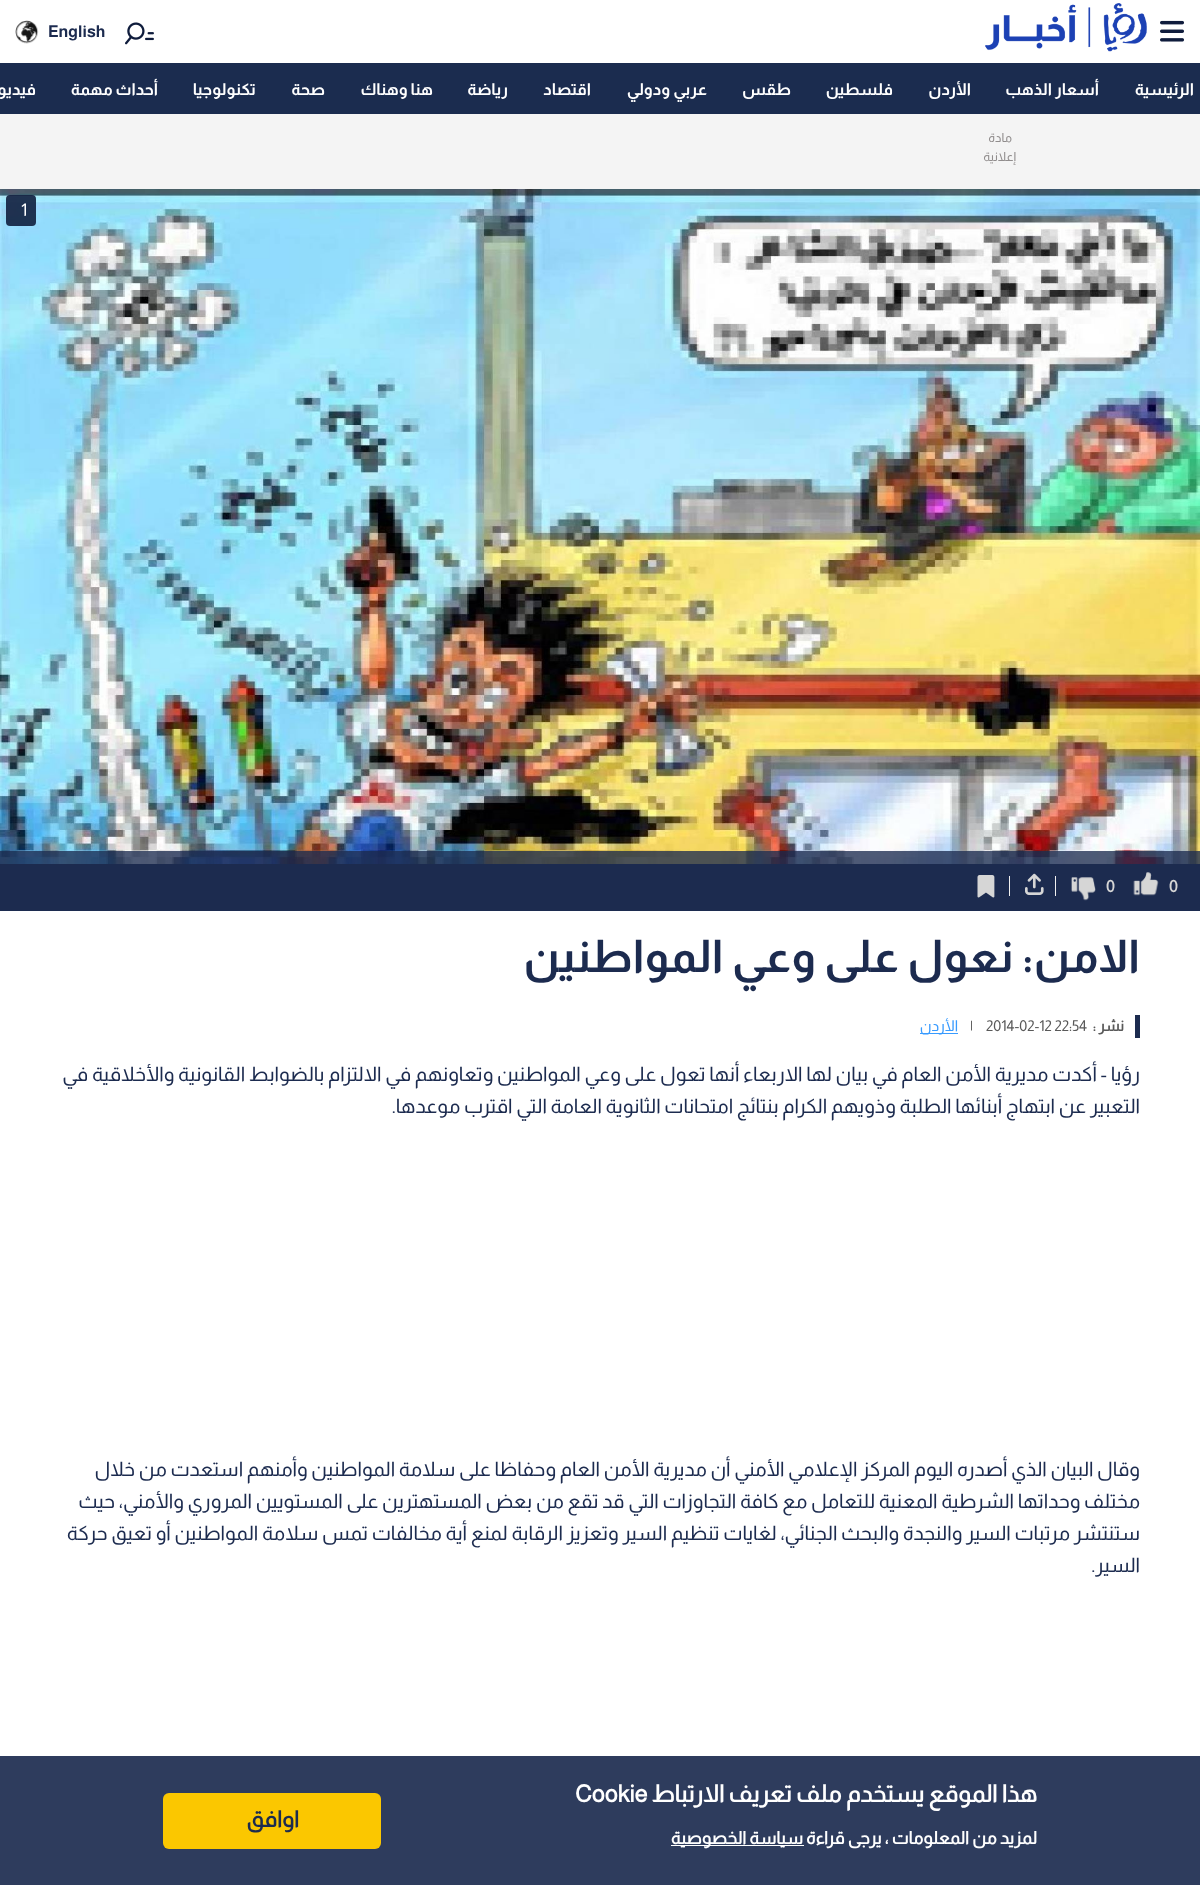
<!DOCTYPE html>
<meta charset="utf-8">
<style>body { margin: 0 } canvas { display: block }</style>
<canvas id="canvas" width="1200" height="1885"></canvas>
<img id="img1" src="img_01.png" hidden>
<img id="img2" src="img_02.png" hidden>
<img id="img3" src="img_03.png" hidden>
<img id="img4" src="img_04.png" hidden>
<img id="img5" src="img_05.png" hidden>
<img id="img6" src="img_06.png" hidden>
<img id="img7" src="img_07.png" hidden>
<img id="img8" src="img_08.png" hidden>
<img id="img9" src="img_09.png" hidden>
<script>
window.onload = function () {
	const canvas = document.getElementById("canvas");
	const ctx = canvas.getContext("2d");
	ctx.miterLimit = 4;
	ctx.fontKerning = "normal";
	function txt(s, x, y) {
		ctx.fillText(s, x, y);
	}
	function fill(x, y, w, h) {
		ctx.fillRect(x, y, w, h);
	}
	function round(x, y, w, h, r) {
		ctx.beginPath();
		ctx.roundRect(x, y, w, h, r);
		ctx.fill();
	}
	function img(id, x, y, w, h) {
		ctx.drawImage(document.getElementById(id), x, y, w, h);
	}

	ctx.fillStyle = "#F4F4F4";
	fill(0, 0, 1200, 1885);
	ctx.fillStyle = "#FFFFFF";
	fill(0, 0, 1200, 63);
	img("img1", 1160, 20, 24, 22);
	img("img2", 985, 3, 162, 49);
	img("img3", 125, 22, 29, 23);
	img("img4", 15, 20, 24, 24);
	ctx.fillStyle = "#1B2C4F";
	fill(0, 63, 1200, 51);
	ctx.fillStyle = "#2E3C5D";
	fill(0, 1756, 1200, 129);
	ctx.fillStyle = "#FFFFFF";
	fill(671, 1845, 133, 1);
	ctx.fillStyle = "#FBC700";
	round(163, 1793, 218, 56, 6);
	ctx.fillStyle = "#FFFFFF";
	fill(0, 911, 1200, 845);
	img("img5", 0, 189, 1200, 675);
	ctx.fillStyle = "rgba(15, 28, 60, 0.89)";
	round(6, 195, 30, 31, 4);
	ctx.fillStyle = "rgba(28, 43, 79, 0.78)";
	fill(0, 851, 1200, 13);
	ctx.fillStyle = "#1C2B4F";
	fill(0, 864, 1200, 47);
	img("img6", 1133, 872, 26, 24);
	img("img7", 1071, 877, 25, 24);
	ctx.fillStyle = "#F0F0F0";
	fill(1055, 876, 1, 20);
	img("img8", 1025, 873, 19, 22);
	fill(1009, 876, 1, 20);
	img("img9", 977, 875, 18, 23);
	ctx.fillStyle = "#1C2B4F";
	fill(1135, 1015, 5, 23);
	ctx.fillStyle = "#389BFF";
	fill(920, 1033, 38, 1);
	ctx.font = "bold 16.25px Almarai";
	ctx.fillStyle = "#1C2B4F";
	txt("English", 48, 37);
	ctx.direction = "rtl";
	ctx.fillStyle = "#FFFFFF";
	txt("الرئيسية", 1194, 95);
	txt("أسعار الذهب", 1099, 95);
	txt("الأردن", 971, 95);
	txt("فلسطين", 893, 95);
	txt("طقس", 791, 95);
	txt("عربي ودولي", 707, 95);
	txt("اقتصاد", 591, 95);
	txt("رياضة", 508, 95);
	txt("هنا وهناك", 433, 95);
	txt("صحة", 325, 95);
	txt("تكنولوجيا", 256, 95);
	txt("أحداث مهمة", 158, 95);
	txt("فيديو", 36, 95);
	ctx.font = "bold 23.75px 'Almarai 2'";
	txt("هذا الموقع يستخدم ملف تعريف الارتباط", 1037, 1802);
	ctx.direction = "ltr";
	txt("Cookie", 575, 1802);
	ctx.direction = "rtl";
	ctx.font = "bold 17.5px 'Almarai 2'";
	txt("لمزيد من المعلومات ، يرجى قراءة", 1037, 1844);
	txt("سياسة الخصوصية", 803, 1844);
	ctx.font = "bold 22.5px 'Almarai 2'";
	ctx.fillStyle = "#1C2B4F";
	txt("اوافق", 299, 1827);
	ctx.font = "12.5px Almarai";
	ctx.fillStyle = "#918D8D";
	txt("مادة", 1012, 142);
	txt("إعلانية", 1016, 161);
	ctx.direction = "ltr";
	ctx.font = "17.5px Almarai";
	ctx.fillStyle = "#FFFFFF";
	txt("1", 21, 216);
	ctx.font = "bold 16.25px 'Almarai 2'";
	ctx.fillStyle = "#D6D6D6";
	txt("0", 1169, 892);
	txt("0", 1106, 892);
	ctx.direction = "rtl";
	ctx.font = "bold 45px Almarai";
	ctx.fillStyle = "#1C2B4F";
	txt("الامن: نعول على وعي المواطنين", 1140, 972);
	ctx.font = "bold 15px 'Almarai 2'";
	ctx.fillStyle = "#595959";
	txt("نشر :", 1124, 1031);
	ctx.direction = "ltr";
	ctx.font = "15px Almarai";
	txt("2014-02-12 22:54", 986, 1031);
	txt("|", 970, 1031);
	ctx.direction = "rtl";
	ctx.fillStyle = "#389BFF";
	txt("الأردن", 958, 1031);
	ctx.font = "20px Almarai";
	ctx.fillStyle = "#1C2B4F";
	txt("رؤيا - أكدت مديرية الأمن العام في بيان لها الاربعاء أنها تعول على وعي المواطنين وتعاونهم في الالتزام بالضوابط القانونية والأخلاقية في", 1140, 1081);
	txt("التعبير عن ابتهاج أبنائها الطلبة وذويهم الكرام بنتائج امتحانات الثانوية العامة التي اقترب موعدها.", 1140, 1113);
	txt("وقال البيان الذي أصدره اليوم المركز الإعلامي الأمني أن مديرية الأمن العام وحفاظا على سلامة المواطنين وأمنهم استعدت من خلال", 1140, 1476);
	txt("مختلف وحداتها الشرطية المعنية للتعامل مع كافة التجاوزات التي قد تقع من بعض المستهترين على المستويين المروري والأمني، حيث", 1140, 1508);
	txt("ستنتشر مرتبات السير والنجدة والبحث الجنائي، لغايات تنظيم السير وتعزيز الرقابة لمنع أية مخالفات تمس سلامة المواطنين أو تعيق حركة", 1140, 1540);
	txt("السير.", 1140, 1572);
};
</script>
